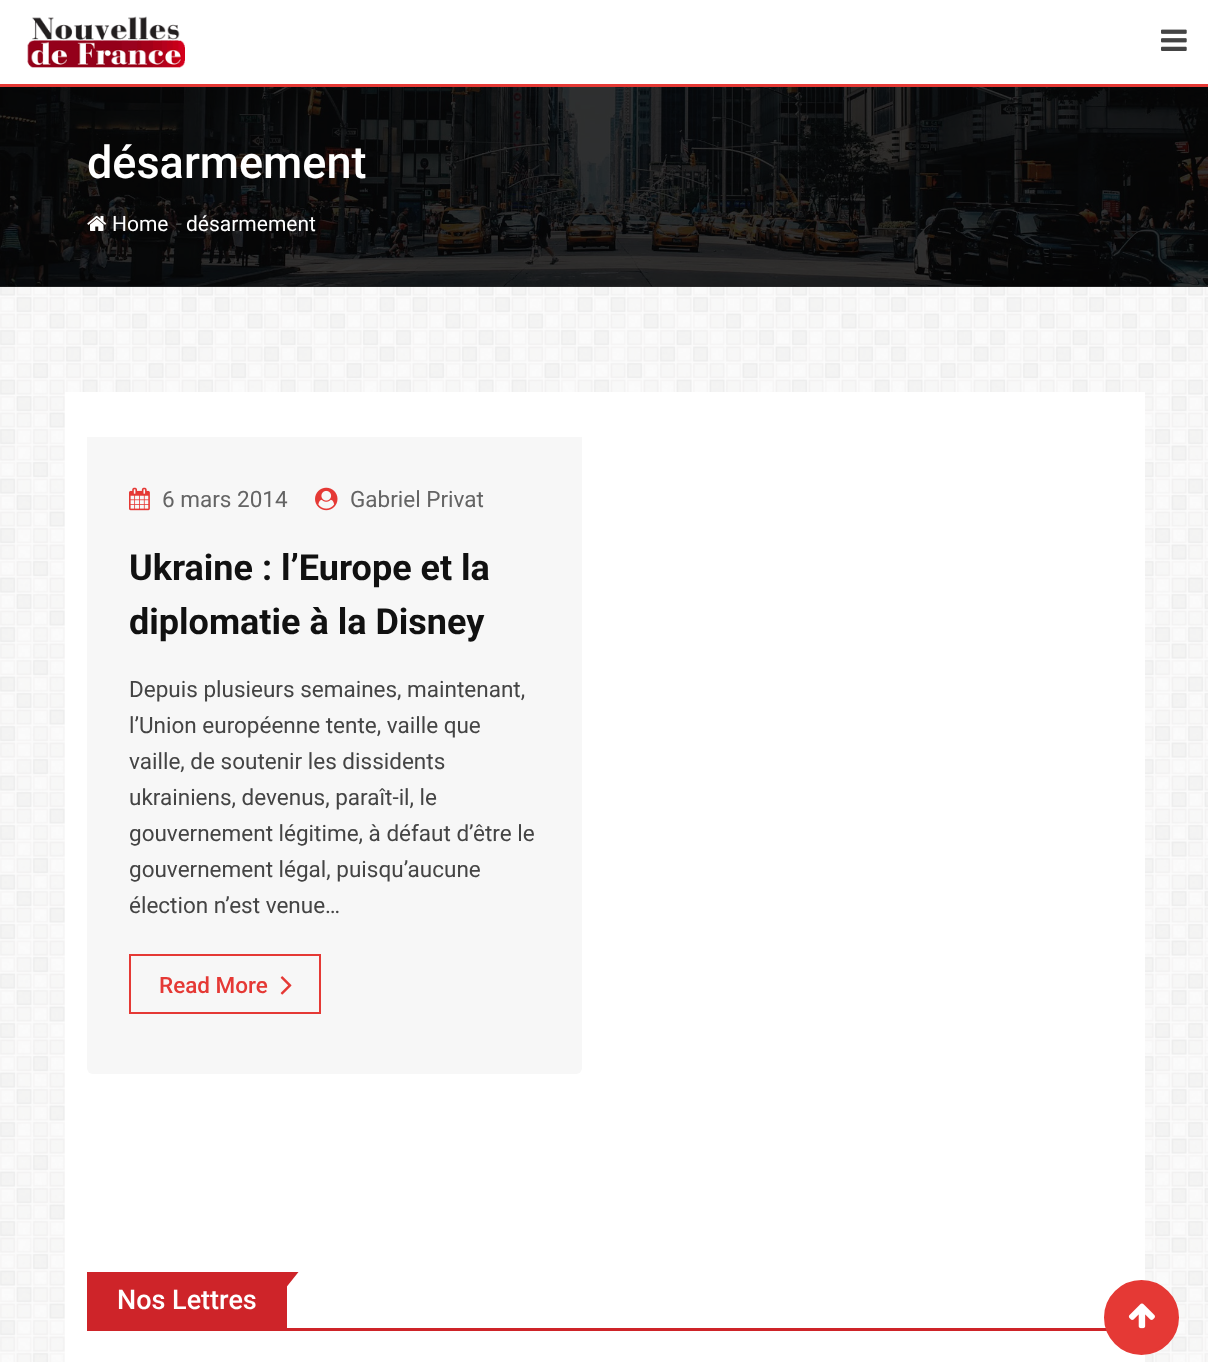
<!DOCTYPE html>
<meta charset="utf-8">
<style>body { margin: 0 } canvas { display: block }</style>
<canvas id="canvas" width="1208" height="1362"></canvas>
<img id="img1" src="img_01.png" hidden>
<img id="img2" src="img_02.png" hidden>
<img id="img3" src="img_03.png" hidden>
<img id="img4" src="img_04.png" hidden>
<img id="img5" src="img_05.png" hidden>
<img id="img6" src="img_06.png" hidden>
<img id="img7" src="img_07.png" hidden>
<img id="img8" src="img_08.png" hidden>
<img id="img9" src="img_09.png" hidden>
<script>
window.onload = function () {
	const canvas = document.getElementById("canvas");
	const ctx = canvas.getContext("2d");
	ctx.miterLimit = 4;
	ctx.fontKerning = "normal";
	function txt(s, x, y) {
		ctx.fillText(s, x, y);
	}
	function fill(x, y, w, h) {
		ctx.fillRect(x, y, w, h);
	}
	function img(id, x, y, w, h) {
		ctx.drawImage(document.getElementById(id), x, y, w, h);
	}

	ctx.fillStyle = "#FFFFFF";
	fill(0, 0, 1208, 1362);
	img("img1", 0, 286, 1208, 1076);
	ctx.fillStyle = "#E53935";
	fill(0, 84, 1208, 3);
	img("img2", 27, 16, 158, 52);
	img("img3", 1161, 29, 26, 22);
	img("img4", 0, 87, 1208, 200);
	ctx.fillStyle = "rgba(0, 0, 0, 0.8)";
	fill(0, 87, 1208, 200);
	img("img5", 87, 216, 20, 15);
	ctx.fillStyle = "#FFFFFF";
	fill(65, 392, 1080, 970);
	ctx.fillStyle = "#F7F7F7";
	ctx.beginPath();
	ctx.roundRect(87, 437, 495, 637, [0, 0, 6, 6]);
	ctx.fill();
	img("img6", 129, 487, 21, 24);
	img("img7", 315, 487, 23, 24);
	ctx.strokeStyle = "#E53935";
	ctx.lineWidth = 2;
	ctx.strokeRect(130, 955, 190, 58);
	img("img8", 280, 976, 12, 19);
	ctx.fillStyle = "#CE2429";
	fill(87, 1328, 1020, 3);
	fill(87, 1272, 200, 56);
	ctx.beginPath();
	ctx.moveTo(286.5, 1272);
	ctx.lineTo(298.5, 1272);
	ctx.lineTo(286.5, 1287);
	ctx.closePath();
	ctx.fill();
	ctx.fillStyle = "#E53935";
	ctx.beginPath();
	ctx.arc(1141.5, 1317.5, 36, 0, Math.PI * 2);
	ctx.fill();
	ctx.lineWidth = 3;
	ctx.stroke();
	img("img9", 1128, 1303, 27, 26);
	ctx.font = "500 45px Roboto";
	ctx.fillStyle = "#FFFFFF";
	txt("désarmement", 87, 178);
	ctx.font = "21px Roboto";
	txt("Home", 112, 231);
	ctx.font = "italic 22.5px Roboto";
	ctx.fillStyle = "#444444";
	txt("-", 174, 231);
	ctx.font = "21px Roboto";
	ctx.fillStyle = "#FFFFFF";
	txt("désarmement", 186, 231);
	ctx.font = "22.5px Roboto";
	ctx.fillStyle = "#646464";
	txt("6 mars 2014", 162, 507);
	txt("Gabriel Privat", 350, 507);
	ctx.font = "bold 36px Roboto";
	ctx.fillStyle = "#111111";
	txt("Ukraine : l’Europe et la", 129, 580);
	txt("diplomatie à la Disney", 129, 634);
	ctx.font = "22.5px Roboto";
	ctx.fillStyle = "#444444";
	txt("Depuis plusieurs semaines, maintenant,", 129, 697);
	txt("l’Union européenne tente, vaille que", 129, 733);
	txt("vaille, de soutenir les dissidents", 129, 769);
	txt("ukrainiens, devenus, paraît-il, le", 129, 805);
	txt("gouvernement légitime, à défaut d’être le", 129, 841);
	txt("gouvernement légal, puisqu’aucune", 129, 877);
	txt("élection n’est venue…", 129, 913);
	ctx.font = "500 22.5px Roboto";
	ctx.fillStyle = "#E53935";
	txt("Read More", 159, 993);
	ctx.font = "500 27px Roboto";
	ctx.fillStyle = "#FFFFFF";
	txt("Nos Lettres", 117, 1309);
};
</script>
